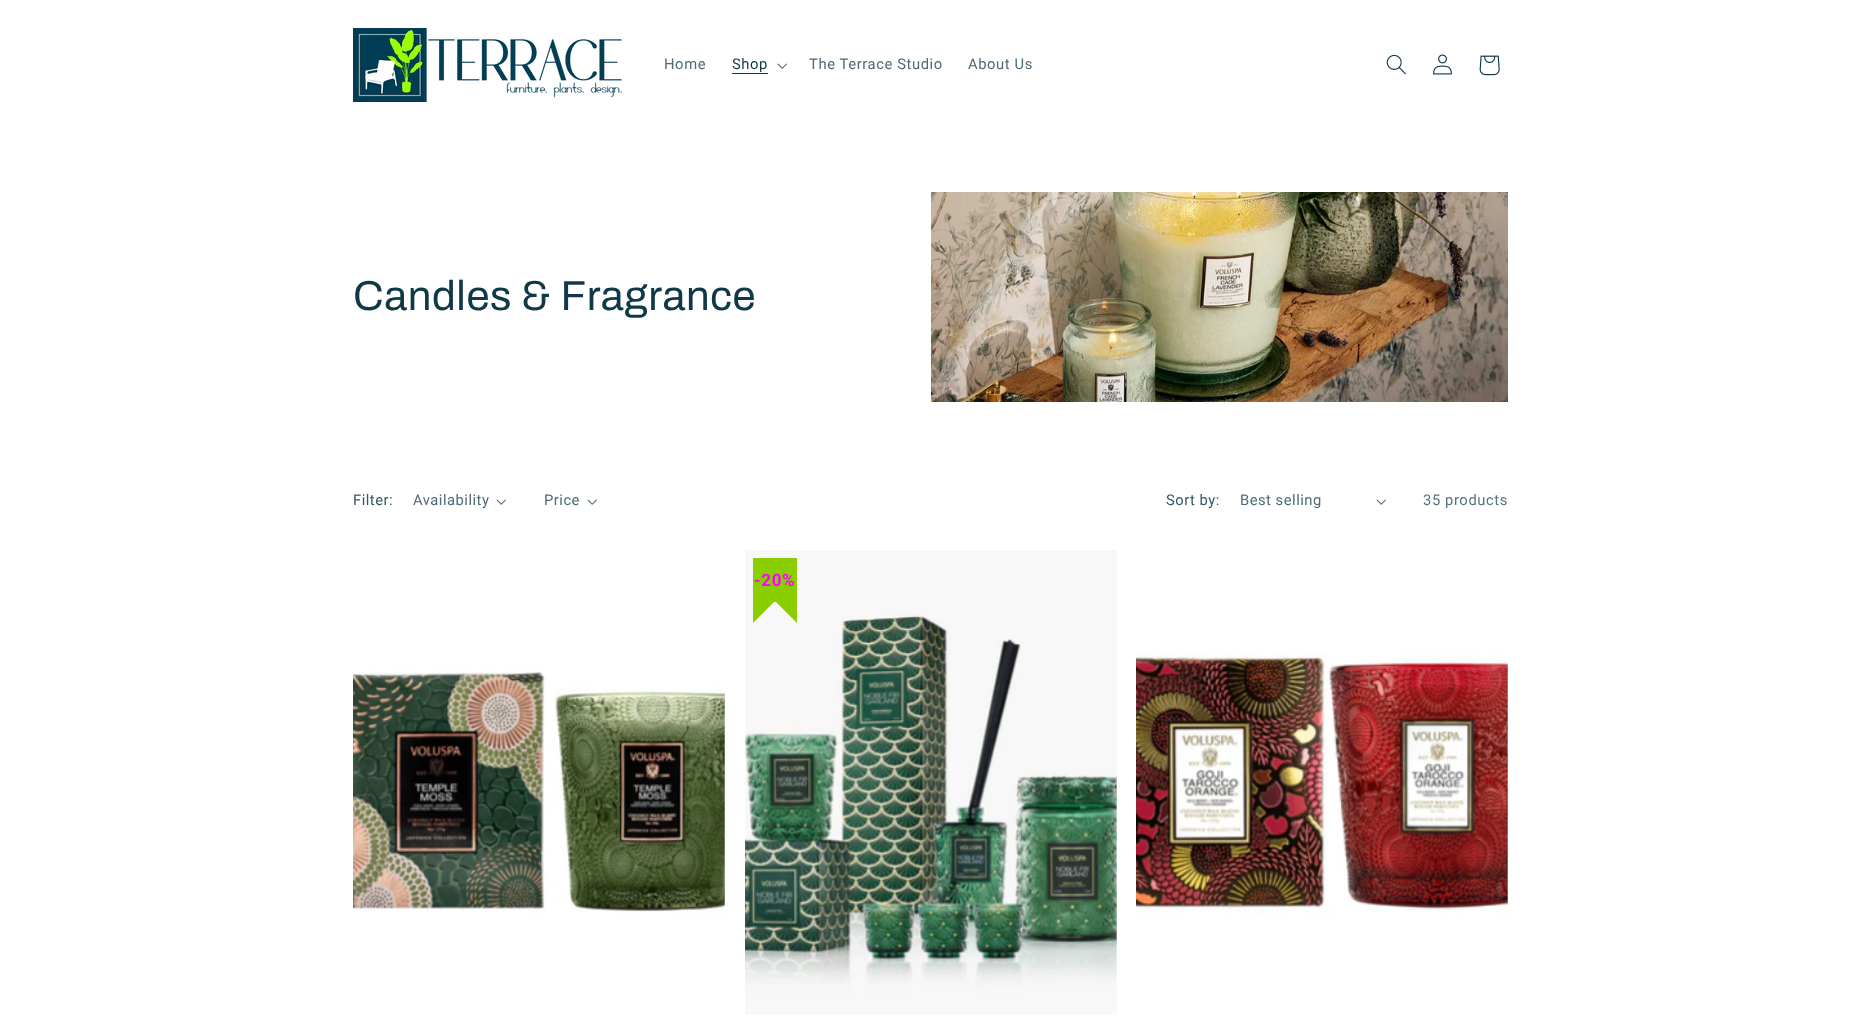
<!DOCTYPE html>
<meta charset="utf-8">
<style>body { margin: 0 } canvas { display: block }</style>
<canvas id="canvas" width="1861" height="1032"></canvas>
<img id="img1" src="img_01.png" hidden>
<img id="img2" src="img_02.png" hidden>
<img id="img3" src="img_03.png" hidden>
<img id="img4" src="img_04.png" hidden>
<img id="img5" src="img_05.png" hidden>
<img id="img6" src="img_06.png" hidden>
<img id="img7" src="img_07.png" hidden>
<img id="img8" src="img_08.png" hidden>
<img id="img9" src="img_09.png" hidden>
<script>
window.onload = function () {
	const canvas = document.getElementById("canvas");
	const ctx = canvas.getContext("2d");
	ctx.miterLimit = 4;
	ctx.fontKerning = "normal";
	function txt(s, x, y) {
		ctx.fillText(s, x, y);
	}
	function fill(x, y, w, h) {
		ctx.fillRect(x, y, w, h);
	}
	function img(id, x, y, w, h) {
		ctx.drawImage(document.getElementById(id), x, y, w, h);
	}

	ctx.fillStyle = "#FFFFFF";
	fill(0, 0, 1861, 1032);
	img("img1", 353, 28, 269, 74);
	ctx.fillStyle = "#103948";
	fill(732, 73, 36, 1);
	img("img2", 777, 63, 10, 6);
	img("img3", 1386, 54, 20, 21);
	img("img4", 1433, 54, 19, 21);
	img("img5", 1479, 55, 21, 21);
	img("img6", 931, 192, 577, 210);
	img("img2", 496, 499, 10, 6);
	img("img2", 587, 499, 10, 6);
	img("img2", 1376, 499, 10, 6);
	img("img7", 353, 550, 372, 464);
	img("img8", 745, 550, 372, 465);
	ctx.fillStyle = "#8ACE00";
	fill(753, 558, 44, 44);
	ctx.beginPath();
	ctx.moveTo(797, 601);
	ctx.lineTo(797, 623);
	ctx.lineTo(775, 601);
	ctx.closePath();
	ctx.moveTo(753, 623);
	ctx.lineTo(753, 601);
	ctx.lineTo(775, 601);
	ctx.closePath();
	ctx.fill();
	img("img9", 1136, 550, 372, 464);
	ctx.letterSpacing = "0.6px";
	ctx.font = "14.75px Roboto";
	ctx.fillStyle = "#4C6B76";
	txt("Home", 664, 69);
	ctx.fillStyle = "#103948";
	txt("Shop", 732, 69);
	ctx.fillStyle = "#4C6B76";
	txt("The Terrace Studio", 809, 69);
	txt("About Us", 968, 69);
	ctx.font = "42px Archivo";
	ctx.fillStyle = "#103948";
	txt("Candles & Fragrance", 353, 310);
	ctx.letterSpacing = "0.5px";
	ctx.font = "14.75px Roboto";
	ctx.fillStyle = "#345763";
	txt("Filter:", 353, 505);
	ctx.fillStyle = "#4C6B76";
	txt("Availability", 413, 505);
	txt("Price", 544, 505);
	ctx.fillStyle = "#345763";
	txt("Sort by:", 1166, 505);
	ctx.fillStyle = "#4C6B76";
	txt("Best selling", 1240, 505);
	ctx.letterSpacing = "0.6px";
	ctx.fillStyle = "#58747F";
	txt("35 products", 1423, 505);
	ctx.font = "bold 17px Roboto";
	ctx.fillStyle = "#FF00FF";
	txt("-20%", 754, 586);
};
</script>
